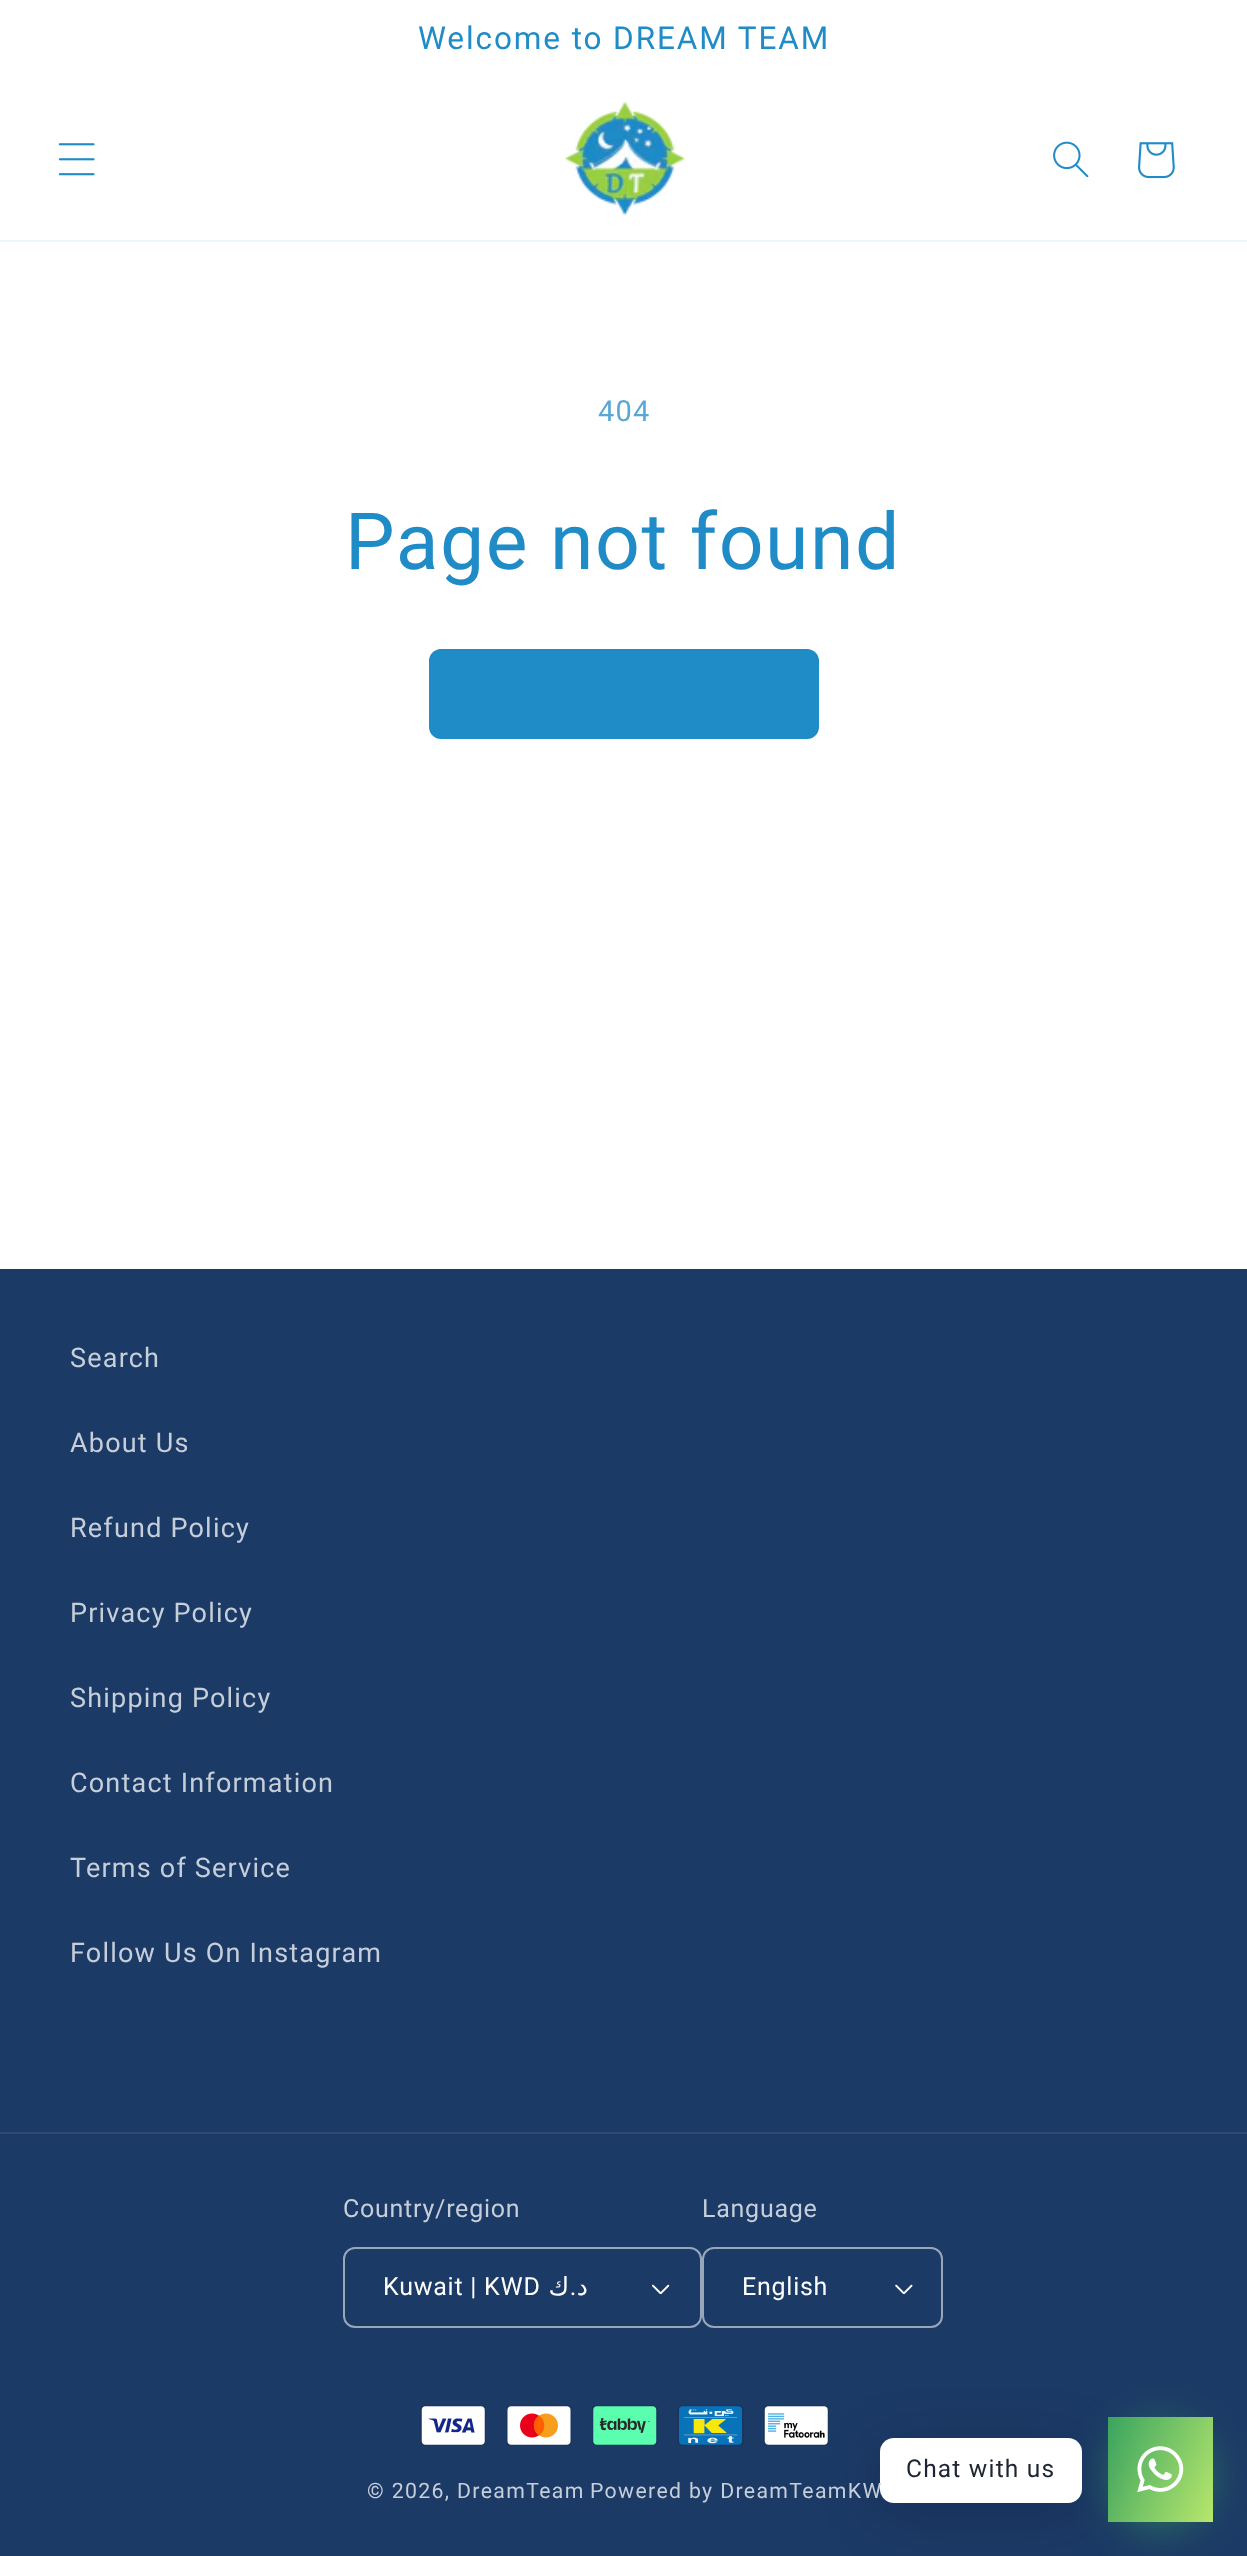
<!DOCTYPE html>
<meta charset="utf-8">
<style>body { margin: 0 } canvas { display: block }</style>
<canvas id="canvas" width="1247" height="2556"></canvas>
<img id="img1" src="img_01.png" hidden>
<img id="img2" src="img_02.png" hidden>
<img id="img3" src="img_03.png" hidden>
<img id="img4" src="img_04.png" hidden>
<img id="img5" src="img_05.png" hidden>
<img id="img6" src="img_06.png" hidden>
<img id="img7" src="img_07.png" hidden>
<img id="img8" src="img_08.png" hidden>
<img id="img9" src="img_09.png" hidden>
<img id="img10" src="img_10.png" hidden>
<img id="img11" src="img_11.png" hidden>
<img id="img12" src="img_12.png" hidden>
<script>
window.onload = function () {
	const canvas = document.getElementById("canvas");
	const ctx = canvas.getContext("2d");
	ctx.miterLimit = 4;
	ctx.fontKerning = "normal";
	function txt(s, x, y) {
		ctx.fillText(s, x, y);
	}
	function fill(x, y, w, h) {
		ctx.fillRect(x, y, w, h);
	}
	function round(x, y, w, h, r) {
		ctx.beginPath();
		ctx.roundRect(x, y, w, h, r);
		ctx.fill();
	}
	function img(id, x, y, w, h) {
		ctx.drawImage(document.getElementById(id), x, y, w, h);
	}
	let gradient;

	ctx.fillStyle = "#FFFFFF";
	fill(0, 0, 1247, 2556);
	ctx.fillStyle = "#EDF6FB";
	fill(0, 240, 1247, 2);
	img("img1", 58, 143, 37, 33);
	img("img2", 565, 101, 120, 115);
	img("img3", 1053, 141, 36, 37);
	img("img4", 1138, 142, 37, 37);
	ctx.fillStyle = "#1F8BC7";
	ctx.beginPath();
	ctx.roundRect(430, 650, 388, 88, 11);
	ctx.fill();
	ctx.strokeStyle = "#1F8BC7";
	ctx.lineWidth = 2;
	ctx.stroke();
	ctx.fillStyle = "#1C3A66";
	fill(0, 1269, 1247, 1287);
	ctx.fillStyle = "#2E4A72";
	fill(0, 2132, 1247, 2);
	img("img5", 652, 2284, 18, 10);
	ctx.beginPath();
	ctx.roundRect(344, 2248, 357, 79, 11);
	ctx.strokeStyle = "#99A6BA";
	ctx.stroke();
	img("img6", 895, 2284, 18, 10);
	ctx.beginPath();
	ctx.roundRect(703, 2248, 239, 79, 11);
	ctx.stroke();
	img("img7", 420, 2405, 66, 41);
	img("img8", 506, 2405, 66, 41);
	img("img9", 592, 2405, 66, 41);
	img("img10", 677, 2405, 67, 41);
	img("img11", 763, 2405, 66, 41);
	ctx.fillStyle = "rgba(58, 165, 96, 0.5)";
	ctx.filter = "blur(21px)";
	ctx.beginPath();
	ctx.roundRect(1108, 2424, 105, 105, 52.5);
	ctx.fill();
	ctx.filter = "none";
	gradient = ctx.createLinearGradient(1097, 2440, 1223, 2499);
	gradient.addColorStop(0, "#3AA560");
	gradient.addColorStop(1, "#B7E66C");
	ctx.fillStyle = gradient;
	fill(1108, 2417, 105, 105);
	ctx.fillStyle = "rgba(0, 18, 46, 0.24)";
	ctx.filter = "blur(28px)";
	ctx.beginPath();
	ctx.roundRect(880, 2448, 202, 65, 14);
	ctx.fill();
	ctx.filter = "none";
	ctx.fillStyle = "#FFFFFF";
	round(880, 2438, 202, 65, 14);
	img("img12", 1137, 2446, 47, 47);
	ctx.letterSpacing = "1.9px";
	ctx.font = "31.5px Roboto";
	ctx.fillStyle = "#1F8BC7";
	txt("Welcome to DREAM TEAM", 418, 49);
	ctx.letterSpacing = "1.2px";
	ctx.font = "29px Roboto";
	ctx.fillStyle = "#57A8D5";
	txt("404", 598, 421);
	ctx.letterSpacing = "1.5px";
	ctx.font = "78.75px Roboto";
	ctx.fillStyle = "#1F8BC7";
	txt("Page not found", 345, 569);
	ctx.letterSpacing = "1.2px";
	ctx.font = "27px Roboto";
	ctx.fillStyle = "#C6CED9";
	txt("Search", 70, 1367);
	txt("About Us", 70, 1452);
	txt("Refund Policy", 70, 1537);
	txt("Privacy Policy", 70, 1622);
	txt("Shipping Policy", 70, 1707);
	txt("Contact Information", 70, 1792);
	txt("Terms of Service", 70, 1877);
	txt("Follow Us On Instagram", 70, 1962);
	ctx.letterSpacing = "0.75px";
	ctx.font = "25px Roboto";
	txt("Country/region", 343, 2217);
	ctx.fillStyle = "#FFFFFF";
	txt("Kuwait | KWD", 383, 2295);
	ctx.direction = "rtl";
	ctx.font = "25px DejaVu Sans";
	txt("ك", 569, 2295);
	ctx.font = "25px Roboto";
	txt(".", 577, 2295);
	ctx.font = "25px DejaVu Sans";
	txt("د", 588, 2295);
	ctx.direction = "ltr";
	ctx.font = "25px Roboto";
	ctx.fillStyle = "#C6CED9";
	txt("Language", 702, 2217);
	ctx.fillStyle = "#FFFFFF";
	txt("English", 742, 2295);
	ctx.letterSpacing = "1.35px";
	ctx.font = "21.25px Roboto";
	ctx.fillStyle = "#C6CED9";
	txt("© 2026, DreamTeam", 367, 2498);
	txt("Powered by DreamTeamKW", 590, 2498);
	ctx.letterSpacing = "1.2px";
	ctx.font = "24.5px Roboto";
	ctx.fillStyle = "#1E2433";
	txt("Chat with us", 906, 2477);
};
</script>
